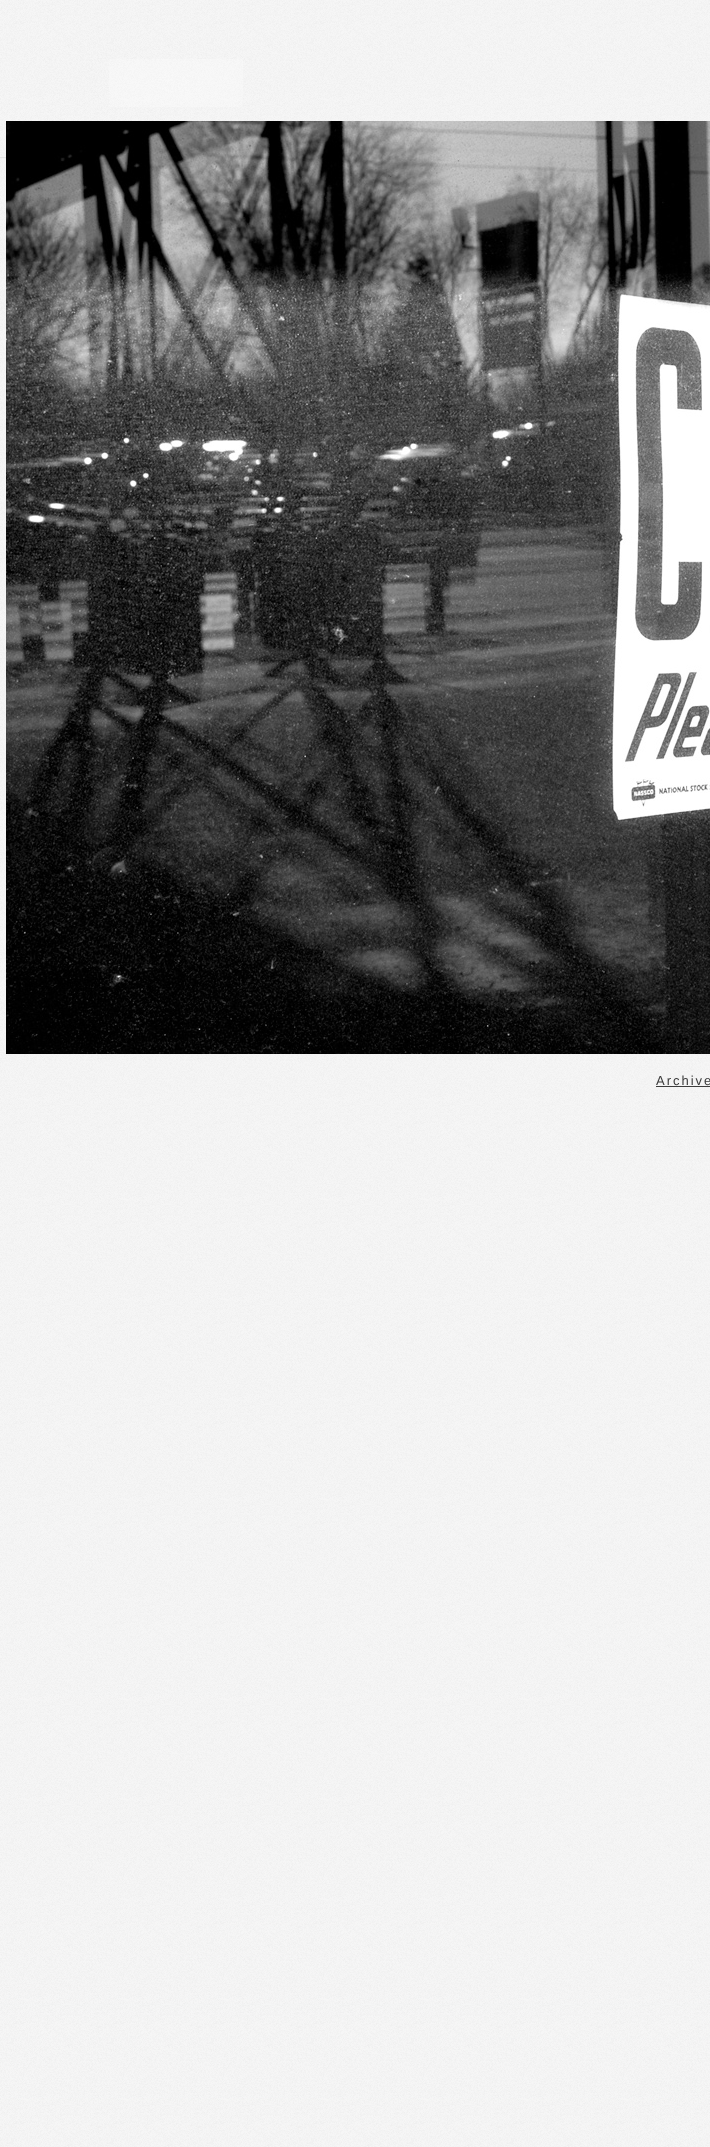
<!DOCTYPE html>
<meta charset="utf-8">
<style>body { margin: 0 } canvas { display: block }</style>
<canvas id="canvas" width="710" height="2147"></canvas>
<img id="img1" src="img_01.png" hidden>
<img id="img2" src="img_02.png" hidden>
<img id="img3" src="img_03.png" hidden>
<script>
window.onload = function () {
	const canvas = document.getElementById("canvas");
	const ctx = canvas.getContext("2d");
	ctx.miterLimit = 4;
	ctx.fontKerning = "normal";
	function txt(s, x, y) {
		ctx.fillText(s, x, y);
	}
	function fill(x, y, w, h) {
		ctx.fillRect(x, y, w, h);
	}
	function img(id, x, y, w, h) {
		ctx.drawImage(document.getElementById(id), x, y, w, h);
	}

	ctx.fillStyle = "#F6F6F6";
	fill(0, 0, 710, 2147);
	img("img1", 0, 0, 710, 2147);
	img("img2", 109, 59, 134, 48);
	ctx.fillStyle = "#E4E4E4";
	fill(0, 157, 6, 1);
	img("img3", 6, 121, 704, 933);
	ctx.fillStyle = "#3C3C3C";
	fill(656, 1086, 54, 1);
	ctx.letterSpacing = "2px";
	ctx.wordSpacing = "3px";
	ctx.font = "13px Liberation Sans";
	txt("Archive", 656, 1085);
};
</script>
